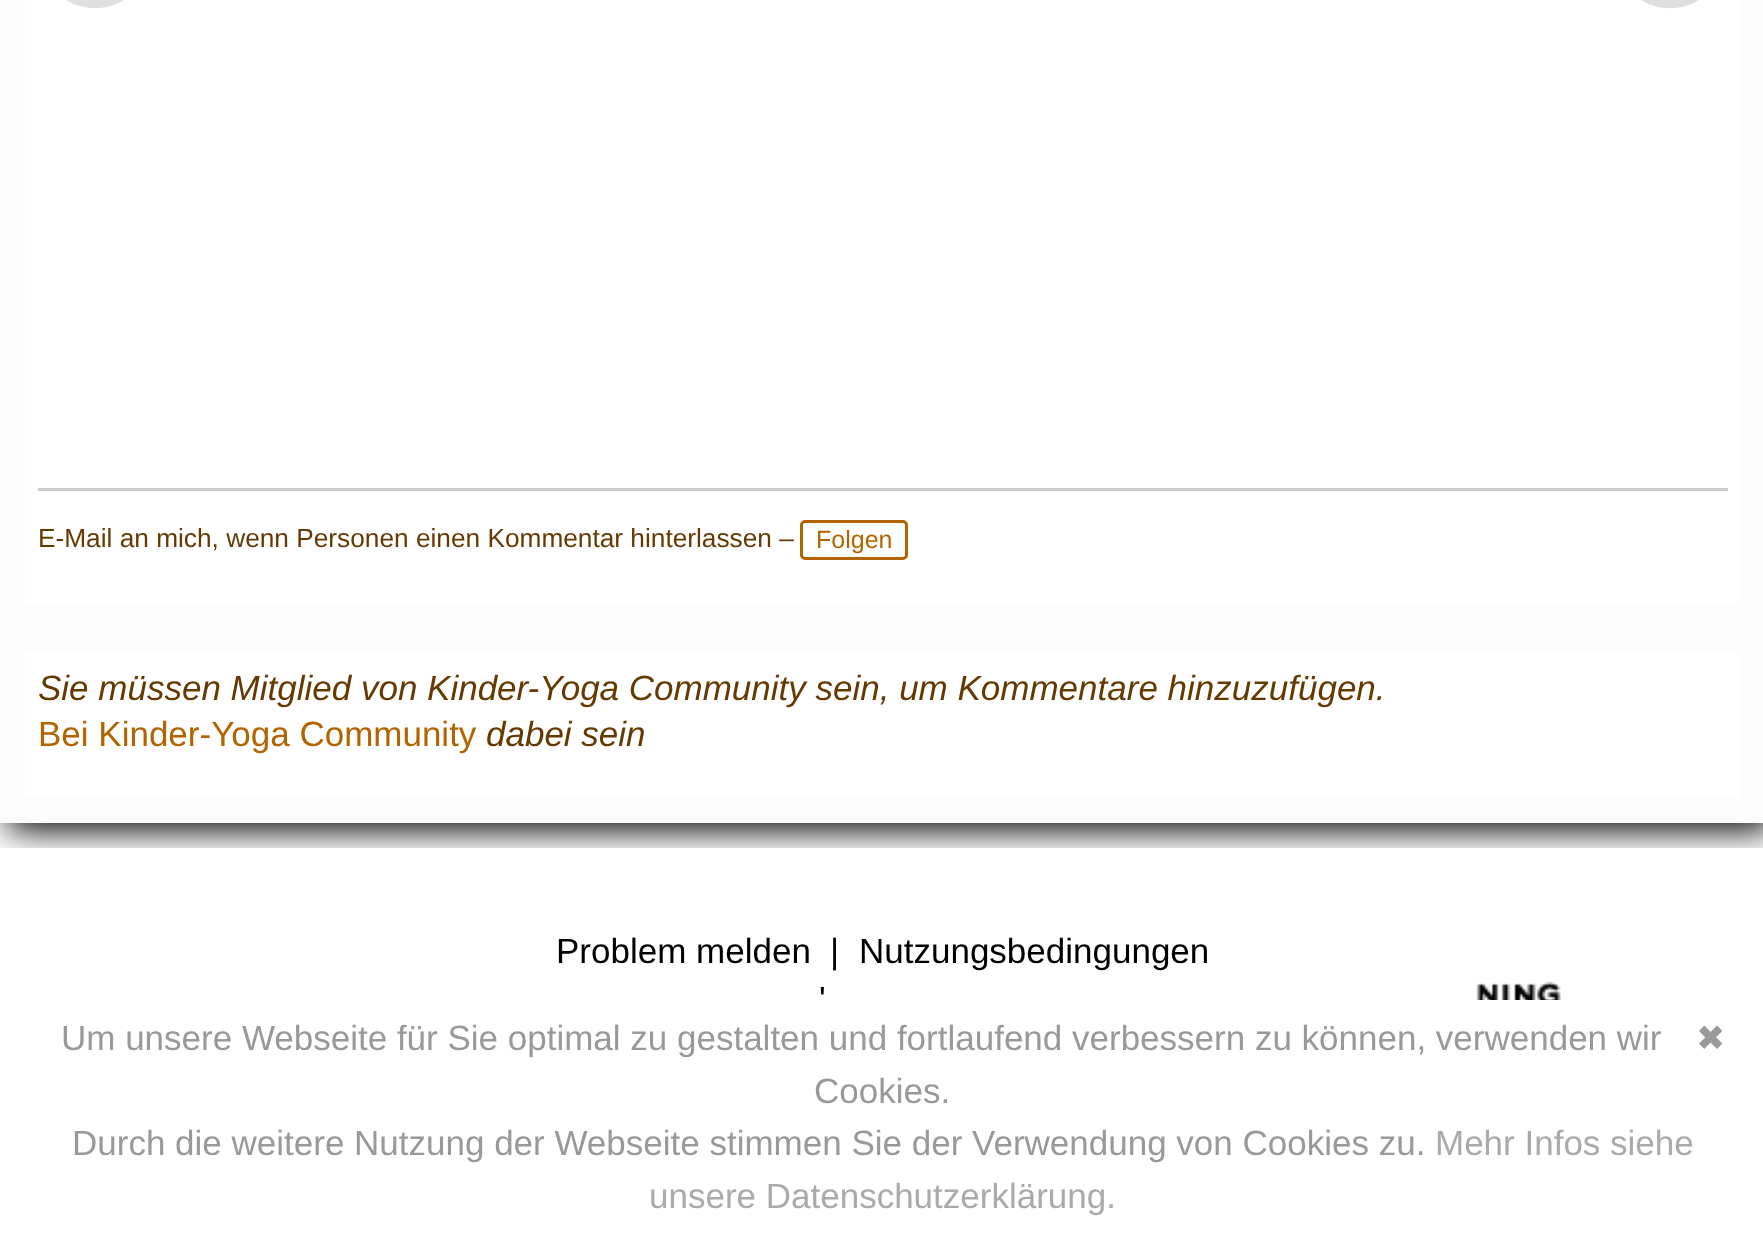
<!DOCTYPE html>
<meta charset="utf-8">
<style>body { margin: 0 } canvas { display: block }</style>
<canvas id="canvas" width="1763" height="1235"></canvas>
<img id="img1" src="img_01.png" hidden>
<img id="img2" src="img_02.png" hidden>
<script>
window.onload = function () {
	const canvas = document.getElementById("canvas");
	const ctx = canvas.getContext("2d");
	ctx.miterLimit = 4;
	ctx.fontKerning = "normal";
	function txt(s, x, y) {
		ctx.fillText(s, x, y);
	}
	function fill(x, y, w, h) {
		ctx.fillRect(x, y, w, h);
	}
	function img(id, x, y, w, h) {
		ctx.drawImage(document.getElementById(id), x, y, w, h);
	}

	ctx.fillStyle = "#FFFFFF";
	fill(0, 0, 1763, 1235);
	ctx.save();
	ctx.beginPath();
	ctx.rect(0, 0, 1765, 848);
	ctx.clip();
	ctx.fillStyle = "#000000";
	ctx.filter = "blur(17.5px)";
	ctx.beginPath();
	ctx.rect(8, -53, 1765, 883);
	ctx.fill();
	ctx.filter = "none";
	ctx.restore();
	ctx.fillStyle = "#FCFCFC";
	fill(0, 0, 1763, 823);
	ctx.fillStyle = "#FFFFFF";
	fill(25, 0, 1715, 603);
	img("img1", 66, 0, 58, 9);
	img("img1", 1641, 0, 58, 9);
	ctx.fillStyle = "#CCCCCC";
	fill(38, 488, 1690, 3);
	ctx.beginPath();
	ctx.roundRect(801.5, 521.5, 105, 37, 3.5);
	ctx.strokeStyle = "#B26400";
	ctx.lineWidth = 3;
	ctx.stroke();
	ctx.fillStyle = "#FFFFFF";
	fill(25, 653, 1715, 145);
	img("img2", 1476, 981, 85, 19);
	ctx.font = "26.25px Liberation Sans";
	ctx.fillStyle = "#653900";
	txt("E-Mail an mich, wenn Personen einen Kommentar hinterlassen –", 38, 547);
	ctx.font = "25px Liberation Sans";
	ctx.fillStyle = "#B26400";
	txt("Folgen", 816, 548);
	ctx.font = "italic 35px Liberation Sans";
	ctx.fillStyle = "#653900";
	txt("Sie müssen Mitglied von Kinder-Yoga Community sein, um Kommentare hinzuzufügen.", 38, 700);
	ctx.font = "35px Liberation Sans";
	ctx.fillStyle = "#B26400";
	txt("Bei Kinder-Yoga Community", 38, 746);
	ctx.font = "italic 35px Liberation Sans";
	ctx.fillStyle = "#653900";
	txt("dabei sein", 486, 746);
	ctx.font = "35px Liberation Sans";
	ctx.fillStyle = "#000000";
	txt("Problem melden", 556, 963);
	txt("|", 830, 963);
	txt("Nutzungsbedingungen", 859, 963);
	txt("'", 819, 1011);
	ctx.fillStyle = "#999999";
	txt("Um unsere Webseite für Sie optimal zu gestalten und fortlaufend verbessern zu können, verwenden wir", 61, 1050);
	ctx.font = "35px DejaVu Sans";
	txt("✖", 1696, 1050);
	ctx.font = "35px Liberation Sans";
	txt("Cookies.", 814, 1103);
	txt("Durch die weitere Nutzung der Webseite stimmen Sie der Verwendung von Cookies zu.", 72, 1155);
	ctx.fillStyle = "#AAAAAA";
	txt("Mehr Infos siehe", 1435, 1155);
	txt("unsere Datenschutzerklärung.", 649, 1208);
};
</script>
